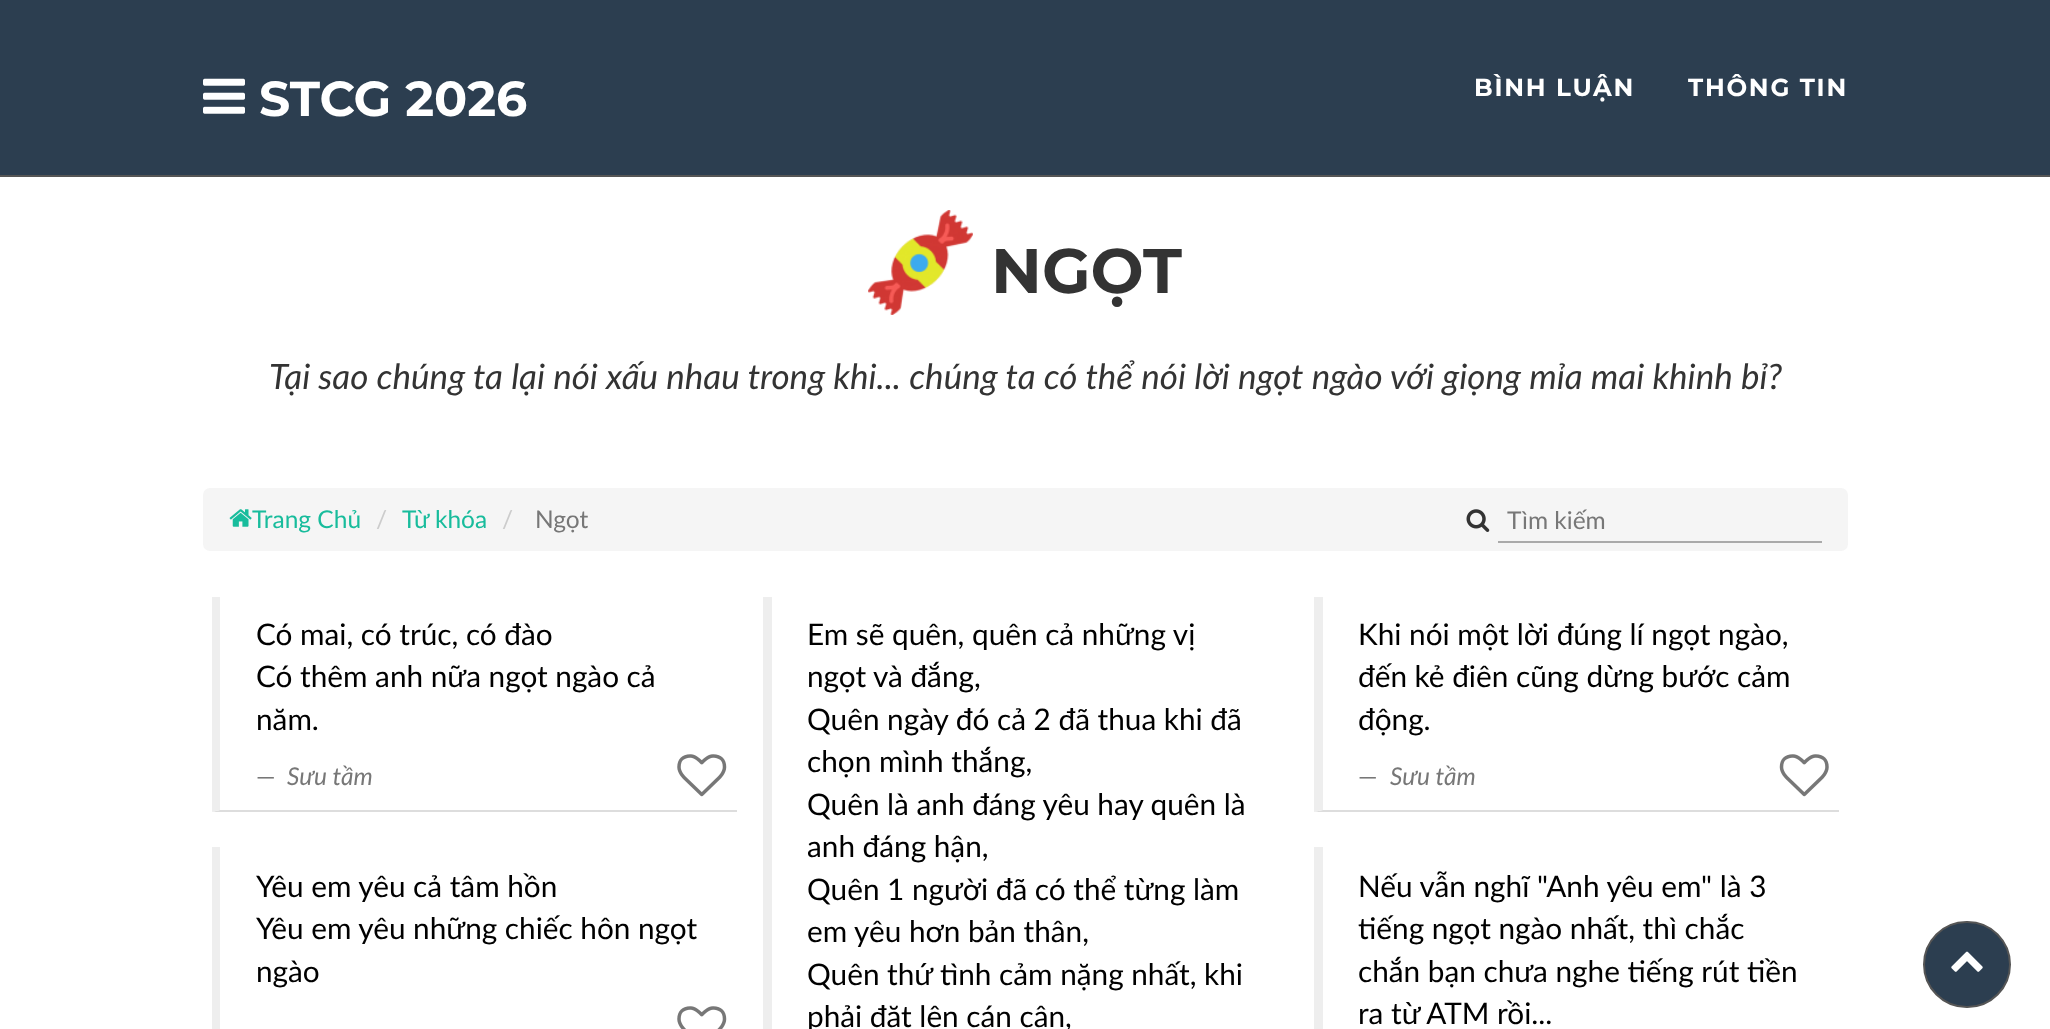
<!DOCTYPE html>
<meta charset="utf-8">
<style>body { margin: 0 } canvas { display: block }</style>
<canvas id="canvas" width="2050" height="1029"></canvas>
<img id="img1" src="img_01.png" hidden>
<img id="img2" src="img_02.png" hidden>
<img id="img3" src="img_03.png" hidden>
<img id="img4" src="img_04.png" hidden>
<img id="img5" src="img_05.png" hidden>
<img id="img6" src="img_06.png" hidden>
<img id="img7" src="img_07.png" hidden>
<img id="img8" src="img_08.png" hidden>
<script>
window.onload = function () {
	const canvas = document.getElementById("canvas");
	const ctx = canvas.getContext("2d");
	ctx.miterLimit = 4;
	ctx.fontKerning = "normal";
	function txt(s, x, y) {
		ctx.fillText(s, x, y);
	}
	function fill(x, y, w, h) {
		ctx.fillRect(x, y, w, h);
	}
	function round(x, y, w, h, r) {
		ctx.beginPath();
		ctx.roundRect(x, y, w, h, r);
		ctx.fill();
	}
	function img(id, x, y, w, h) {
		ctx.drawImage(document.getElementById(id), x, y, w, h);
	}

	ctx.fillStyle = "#FFFFFF";
	fill(0, 0, 2050, 1029);
	ctx.fillStyle = "#2C3E50";
	fill(0, 0, 2050, 175);
	ctx.fillStyle = "#555555";
	fill(0, 175, 2050, 2);
	img("img1", 203, 78, 42, 36);
	img("img2", 868, 210, 105, 105);
	ctx.fillStyle = "#F5F5F5";
	round(203, 488, 1645, 63, 7);
	img("img3", 229, 509, 23, 18);
	img("img4", 1466, 509, 24, 23);
	ctx.fillStyle = "#AAAAAA";
	fill(1498, 541, 324, 2);
	ctx.fillStyle = "#DDDDDD";
	ctx.beginPath();
	ctx.moveTo(737, 812);
	ctx.lineTo(212, 812);
	ctx.lineTo(220, 810);
	ctx.lineTo(737, 810);
	ctx.closePath();
	ctx.fill();
	ctx.fillStyle = "#EEEEEE";
	ctx.beginPath();
	ctx.moveTo(212, 812);
	ctx.lineTo(212, 597);
	ctx.lineTo(220, 597);
	ctx.lineTo(220, 810);
	ctx.closePath();
	ctx.fill();
	img("img5", 677, 754, 50, 43);
	ctx.beginPath();
	ctx.moveTo(763, 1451);
	ctx.lineTo(763, 597);
	ctx.lineTo(772, 597);
	ctx.lineTo(772, 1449);
	ctx.closePath();
	ctx.fill();
	ctx.fillStyle = "#DDDDDD";
	ctx.beginPath();
	ctx.moveTo(1839, 812);
	ctx.lineTo(1314, 812);
	ctx.lineTo(1323, 810);
	ctx.lineTo(1839, 810);
	ctx.closePath();
	ctx.fill();
	ctx.fillStyle = "#EEEEEE";
	ctx.beginPath();
	ctx.moveTo(1314, 812);
	ctx.lineTo(1314, 597);
	ctx.lineTo(1323, 597);
	ctx.lineTo(1323, 810);
	ctx.closePath();
	ctx.fill();
	img("img6", 1779, 754, 50, 43);
	ctx.beginPath();
	ctx.moveTo(212, 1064);
	ctx.lineTo(212, 847);
	ctx.lineTo(220, 847);
	ctx.lineTo(220, 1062);
	ctx.closePath();
	ctx.fill();
	img("img7", 677, 1006, 50, 23);
	ctx.beginPath();
	ctx.moveTo(1314, 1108);
	ctx.lineTo(1314, 847);
	ctx.lineTo(1323, 847);
	ctx.lineTo(1323, 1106);
	ctx.closePath();
	ctx.fill();
	ctx.fillStyle = "#2C3E50";
	ctx.beginPath();
	ctx.roundRect(1924, 922, 86, 85, 42.5);
	ctx.fill();
	ctx.strokeStyle = "#555555";
	ctx.lineWidth = 2;
	ctx.stroke();
	img("img8", 1951, 951, 32, 21);
	ctx.font = "bold 49px Montserrat";
	ctx.fillStyle = "#FFFFFF";
	txt("STCG 2026", 259, 116);
	ctx.letterSpacing = "1.75px";
	ctx.font = "bold 24.5px Montserrat";
	txt("BÌNH LUẬN", 1474, 96);
	txt("THÔNG TIN", 1688, 96);
	ctx.letterSpacing = "0px";
	ctx.font = "bold 63px Montserrat";
	ctx.fillStyle = "#333333";
	txt("NGỌT", 991, 293);
	ctx.font = "italic 35px Lato";
	txt("Tại sao chúng ta lại nói xấu nhau trong khi... chúng ta có thể nói lời ngọt ngào với giọng mỉa mai khinh bỉ?", 269, 389);
	ctx.font = "24.5px Lato";
	ctx.fillStyle = "#18BC9C";
	txt("Trang Chủ", 252, 528);
	ctx.fillStyle = "#CCCCCC";
	txt("/", 376, 528);
	ctx.fillStyle = "#18BC9C";
	txt("Từ khóa", 402, 528);
	ctx.fillStyle = "#CCCCCC";
	txt("/", 502, 528);
	ctx.fillStyle = "#777777";
	txt("Ngọt", 535, 528);
	txt("Tìm kiếm", 1507, 529);
	ctx.font = "29.75px Lato";
	ctx.fillStyle = "#000000";
	txt("Có mai, có trúc, có đào", 256, 645);
	txt("Có thêm anh nữa ngọt ngào cả", 256, 687);
	txt("năm.", 256, 730);
	ctx.font = "24.5px Lato";
	ctx.fillStyle = "#777777";
	txt("—", 256, 785);
	ctx.font = "italic 24.5px Lato";
	txt("Sưu tầm", 287, 785);
	ctx.font = "29.75px Lato";
	ctx.fillStyle = "#000000";
	txt("Em sẽ quên, quên cả những vị", 807, 645);
	txt("ngọt và đắng,", 807, 687);
	txt("Quên ngày đó cả 2 đã thua khi đã", 807, 730);
	txt("chọn mình thắng,", 807, 772);
	txt("Quên là anh đáng yêu hay quên là", 807, 815);
	txt("anh đáng hận,", 807, 857);
	txt("Quên 1 người đã có thể từng làm", 807, 900);
	txt("em yêu hơn bản thân,", 807, 942);
	txt("Quên thứ tình cảm nặng nhất, khi", 807, 985);
	txt("phải đặt lên cán cân,", 807, 1027);
	txt("Khi nói một lời đúng lí ngọt ngào,", 1358, 645);
	txt("đến kẻ điên cũng dừng bước cảm", 1358, 687);
	txt("động.", 1358, 730);
	ctx.font = "24.5px Lato";
	ctx.fillStyle = "#777777";
	txt("—", 1358, 785);
	ctx.font = "italic 24.5px Lato";
	txt("Sưu tầm", 1390, 785);
	ctx.font = "29.75px Lato";
	ctx.fillStyle = "#000000";
	txt("Yêu em yêu cả tâm hồn", 256, 897);
	txt("Yêu em yêu những chiếc hôn ngọt", 256, 939);
	txt("ngào", 256, 982);
	txt("Nếu vẫn nghĩ \"Anh yêu em\" là 3", 1358, 897);
	txt("tiếng ngọt ngào nhất, thì chắc", 1358, 939);
	txt("chắn bạn chưa nghe tiếng rút tiền", 1358, 982);
	txt("ra từ ATM rồi...", 1358, 1024);
};
</script>
